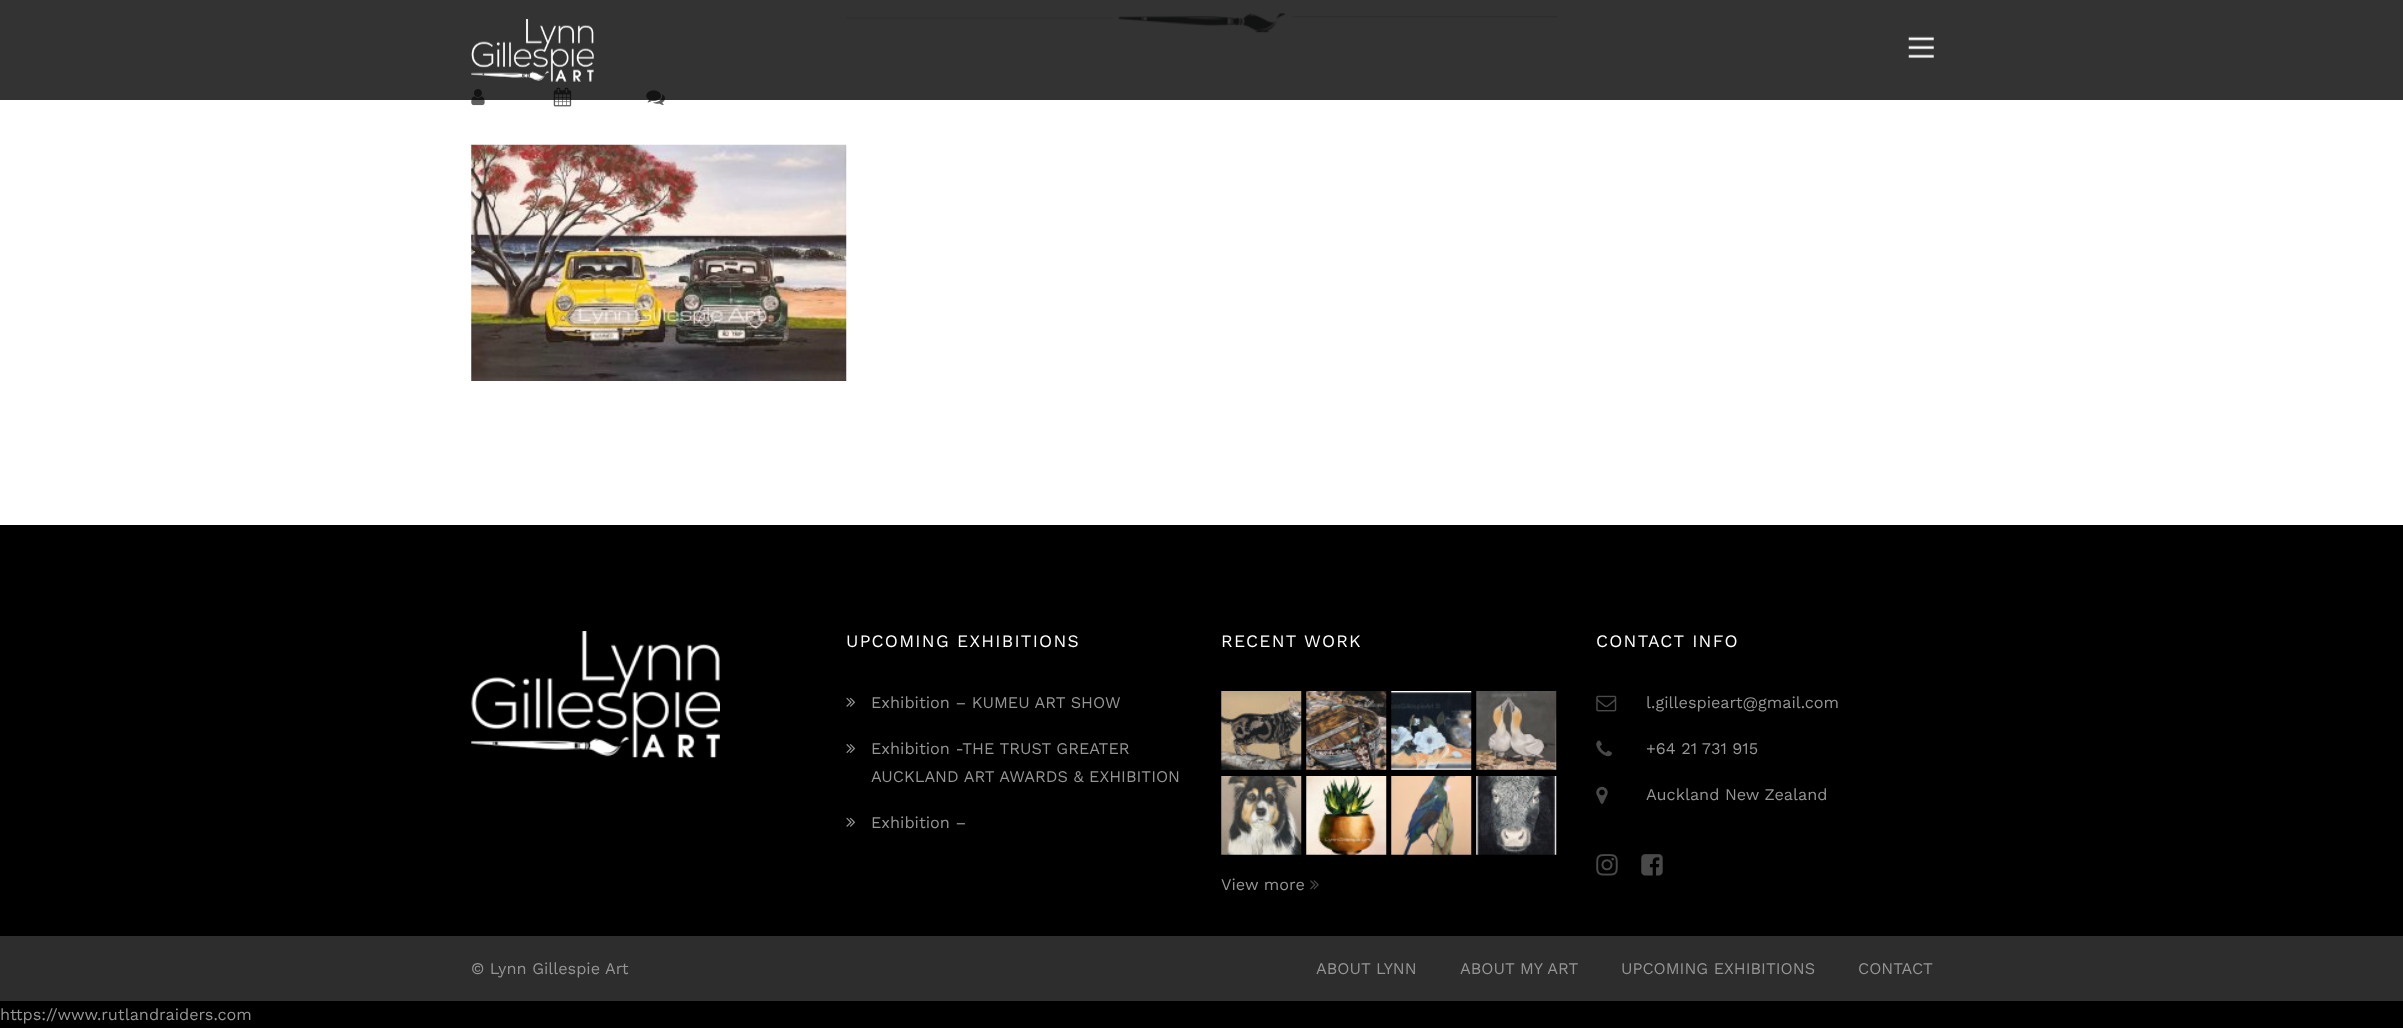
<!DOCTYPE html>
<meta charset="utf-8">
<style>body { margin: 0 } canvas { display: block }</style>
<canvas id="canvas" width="2403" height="1028"></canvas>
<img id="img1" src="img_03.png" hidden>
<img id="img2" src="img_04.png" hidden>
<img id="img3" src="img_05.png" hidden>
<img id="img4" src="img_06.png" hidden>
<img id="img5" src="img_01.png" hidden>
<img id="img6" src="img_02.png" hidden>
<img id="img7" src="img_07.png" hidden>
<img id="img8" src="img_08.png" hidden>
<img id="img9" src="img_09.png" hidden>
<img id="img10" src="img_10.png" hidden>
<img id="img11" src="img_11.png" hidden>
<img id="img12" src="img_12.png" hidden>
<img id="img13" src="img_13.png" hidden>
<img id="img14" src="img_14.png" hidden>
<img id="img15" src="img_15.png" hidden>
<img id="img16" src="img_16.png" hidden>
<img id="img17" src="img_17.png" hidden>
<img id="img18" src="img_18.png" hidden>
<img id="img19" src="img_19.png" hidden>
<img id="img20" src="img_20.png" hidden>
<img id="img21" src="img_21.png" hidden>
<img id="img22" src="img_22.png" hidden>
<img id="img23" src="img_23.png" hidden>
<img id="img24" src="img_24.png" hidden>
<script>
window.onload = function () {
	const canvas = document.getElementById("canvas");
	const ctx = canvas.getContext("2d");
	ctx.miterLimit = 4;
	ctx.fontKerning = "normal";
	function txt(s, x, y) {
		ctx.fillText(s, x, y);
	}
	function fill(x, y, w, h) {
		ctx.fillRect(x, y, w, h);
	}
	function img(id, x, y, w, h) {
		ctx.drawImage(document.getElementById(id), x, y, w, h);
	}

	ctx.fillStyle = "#FFFFFF";
	fill(0, 0, 2403, 1028);
	img("img1", 846, 13, 712, 20);
	img("img2", 471, 89, 14, 17);
	img("img3", 553, 87, 19, 20);
	img("img4", 646, 90, 19, 16);
	ctx.fillStyle = "rgba(0, 0, 0, 0.8)";
	fill(0, 0, 2403, 100);
	img("img5", 471, 19, 123, 63);
	img("img6", 1908, 36, 26, 22);
	img("img7", 471, 144, 376, 237);
	ctx.fillStyle = "#000000";
	fill(0, 525, 2403, 503);
	img("img8", 471, 631, 249, 127);
	img("img9", 846, 697, 10, 10);
	img("img10", 846, 744, 10, 9);
	img("img9", 846, 817, 10, 10);
	img("img11", 1221, 691, 81, 79);
	img("img12", 1306, 691, 81, 79);
	img("img13", 1391, 691, 81, 79);
	img("img14", 1476, 691, 81, 79);
	img("img15", 1221, 776, 81, 79);
	img("img16", 1306, 776, 81, 79);
	img("img17", 1391, 776, 81, 79);
	img("img18", 1476, 776, 81, 79);
	img("img19", 1310, 880, 9, 10);
	img("img20", 1596, 695, 21, 17);
	img("img21", 1596, 740, 16, 17);
	img("img22", 1596, 786, 12, 18);
	img("img23", 1596, 854, 22, 22);
	img("img24", 1641, 854, 22, 22);
	ctx.fillStyle = "#2D2D2D";
	fill(0, 936, 2403, 65);
	ctx.letterSpacing = "1.25px";
	ctx.font = "17.5px Work Sans";
	ctx.fillStyle = "#FFFFFF";
	txt("UPCOMING EXHIBITIONS", 846, 647);
	ctx.letterSpacing = "0px";
	ctx.font = "16.25px Work Sans";
	ctx.fillStyle = "#959595";
	txt("Exhibition – KUMEU ART SHOW", 871, 708);
	txt("Exhibition -THE TRUST GREATER", 871, 754);
	txt("AUCKLAND ART AWARDS & EXHIBITION", 871, 782);
	txt("Exhibition –", 871, 828);
	ctx.letterSpacing = "1.25px";
	ctx.font = "17.5px Work Sans";
	ctx.fillStyle = "#FFFFFF";
	txt("RECENT WORK", 1221, 647);
	ctx.letterSpacing = "0px";
	ctx.font = "16.25px Work Sans";
	ctx.fillStyle = "#959595";
	txt("View more", 1221, 890);
	ctx.letterSpacing = "1.25px";
	ctx.font = "17.5px Work Sans";
	ctx.fillStyle = "#FFFFFF";
	txt("CONTACT INFO", 1596, 647);
	ctx.letterSpacing = "0px";
	ctx.font = "16.25px Work Sans";
	ctx.fillStyle = "#959595";
	txt("l.gillespieart@gmail.com", 1646, 708);
	txt("+64 21 731 915", 1646, 754);
	txt("Auckland New Zealand", 1646, 800);
	txt("© Lynn Gillespie Art", 471, 974);
	txt("ABOUT LYNN", 1316, 974);
	txt("ABOUT MY ART", 1460, 974);
	txt("UPCOMING EXHIBITIONS", 1621, 974);
	txt("CONTACT", 1858, 974);
	txt("https://www.rutlandraiders.com", 0, 1020);
};
</script>
